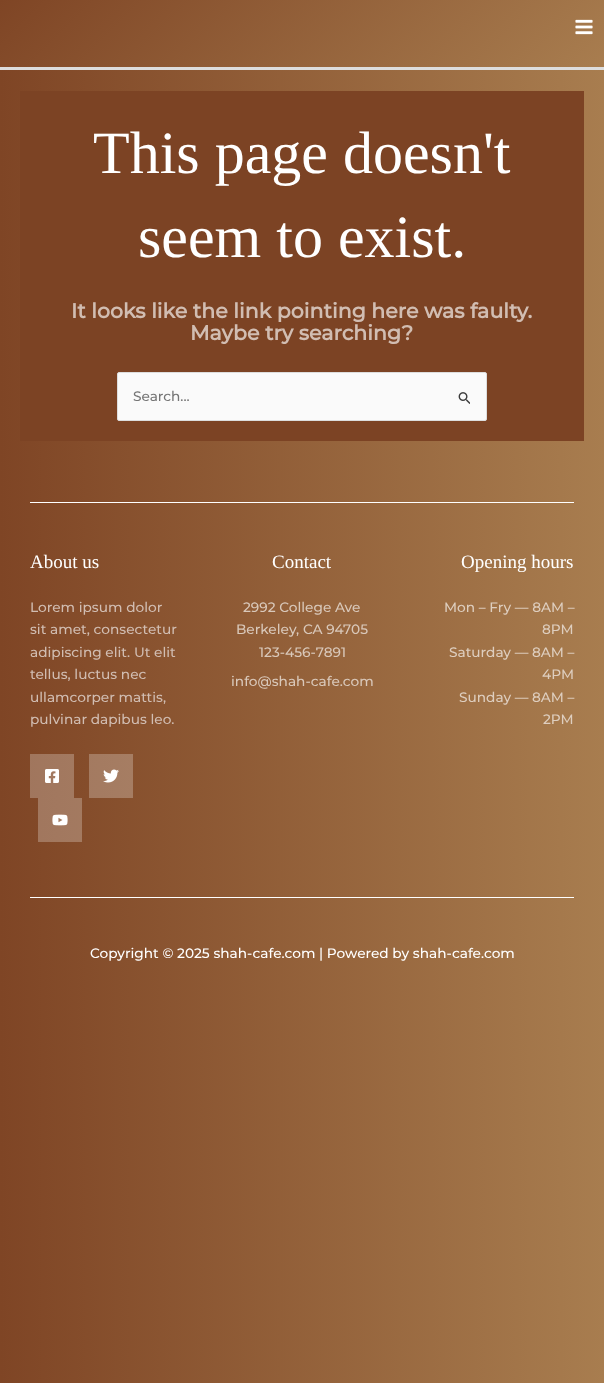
<!DOCTYPE html>
<meta charset="utf-8">
<style>body { margin: 0 } canvas { display: block }</style>
<canvas id="canvas" width="604" height="1383"></canvas>
<img id="img1" src="img_01.png" hidden>
<img id="img2" src="img_02.png" hidden>
<img id="img3" src="img_03.png" hidden>
<img id="img4" src="img_04.png" hidden>
<img id="img5" src="img_05.png" hidden>
<script>
window.onload = function () {
	const canvas = document.getElementById("canvas");
	const ctx = canvas.getContext("2d");
	ctx.miterLimit = 4;
	ctx.fontKerning = "normal";
	function txt(s, x, y) {
		ctx.fillText(s, x, y);
	}
	function fill(x, y, w, h) {
		ctx.fillRect(x, y, w, h);
	}
	function img(id, x, y, w, h) {
		ctx.drawImage(document.getElementById(id), x, y, w, h);
	}
	let gradient;

	ctx.fillStyle = "#FFFFFF";
	fill(0, 0, 604, 1383);
	gradient = ctx.createLinearGradient(0, 509, 604, 509);
	gradient.addColorStop(0, "#7F4525");
	gradient.addColorStop(1, "#A87D4F");
	ctx.fillStyle = gradient;
	fill(0, 70, 604, 1313);
	gradient = ctx.createLinearGradient(0, 509, 604, 509);
	gradient.addColorStop(0, "#9F745C");
	gradient.addColorStop(1, "#BE9E7B");
	ctx.fillStyle = gradient;
	fill(38, 798, 44, 44);
	fill(89, 754, 44, 44);
	fill(30, 754, 44, 44);
	gradient = ctx.createLinearGradient(134, -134, 470, 201);
	gradient.addColorStop(0, "#7F4525");
	gradient.addColorStop(1, "#A87D4F");
	ctx.fillStyle = gradient;
	fill(0, 0, 604, 67);
	ctx.fillStyle = "#DDDDDD";
	fill(0, 67, 604, 3);
	img("img1", 575, 19, 18, 16);
	ctx.fillStyle = "#7C4324";
	fill(20, 91, 564, 350);
	ctx.fillStyle = "#FAFAFA";
	ctx.beginPath();
	ctx.roundRect(117.5, 372.5, 369, 48, 1.5);
	ctx.fill();
	ctx.strokeStyle = "#DDDDDD";
	ctx.stroke();
	img("img2", 458, 392, 12, 12);
	ctx.fillStyle = "#FFFFFF";
	fill(30, 502, 544, 1);
	img("img3", 45, 769, 14, 14);
	img("img4", 103, 769, 16, 14);
	img("img5", 52, 814, 16, 12);
	fill(30, 897, 544, 1);
	ctx.font = "60px Liberation Serif";
	txt("This page doesn't", 93, 173);
	txt("seem to exist.", 138, 257);
	ctx.font = "bold 20.5px Montserrat";
	ctx.fillStyle = "#D1BDB2";
	txt("It looks like the link pointing here was faulty.", 71, 318);
	txt("Maybe try searching?", 190, 340);
	ctx.font = "100 13.7px Montserrat";
	ctx.fillStyle = "#757575";
	txt("Search...", 133, 401);
	ctx.font = "19px Liberation Serif";
	ctx.fillStyle = "#FFFFFF";
	txt("About us", 30, 568);
	ctx.font = "100 13.7px Montserrat";
	ctx.fillStyle = "#D1BDB2";
	txt("Lorem ipsum dolor", 30, 612);
	txt("sit amet, consectetur", 30, 634);
	txt("adipiscing elit. Ut elit", 30, 657);
	txt("tellus, luctus nec", 30, 679);
	txt("ullamcorper mattis,", 30, 702);
	txt("pulvinar dapibus leo.", 30, 724);
	ctx.font = "19px Liberation Serif";
	ctx.fillStyle = "#FFFFFF";
	txt("Contact", 272, 568);
	ctx.font = "100 13.7px Montserrat";
	ctx.fillStyle = "#D9C8BA";
	txt("2992 College Ave", 243, 612);
	txt("Berkeley, CA 94705", 236, 634);
	txt("123-456-7891", 259, 657);
	txt("info@shah-cafe.com", 231, 686);
	ctx.font = "19px Liberation Serif";
	ctx.fillStyle = "#FFFFFF";
	txt("Opening hours", 461, 568);
	ctx.font = "100 13.7px Montserrat";
	ctx.fillStyle = "#DECEBF";
	txt("Mon – Fry — 8AM –", 444, 612);
	txt("8PM", 542, 634);
	txt("Saturday — 8AM –", 449, 657);
	txt("4PM", 542, 679);
	txt("Sunday — 8AM –", 459, 702);
	txt("2PM", 543, 724);
	ctx.fillStyle = "#FFFFFF";
	txt("Copyright © 2025 shah-cafe.com | Powered by shah-cafe.com", 90, 958);
};
</script>
